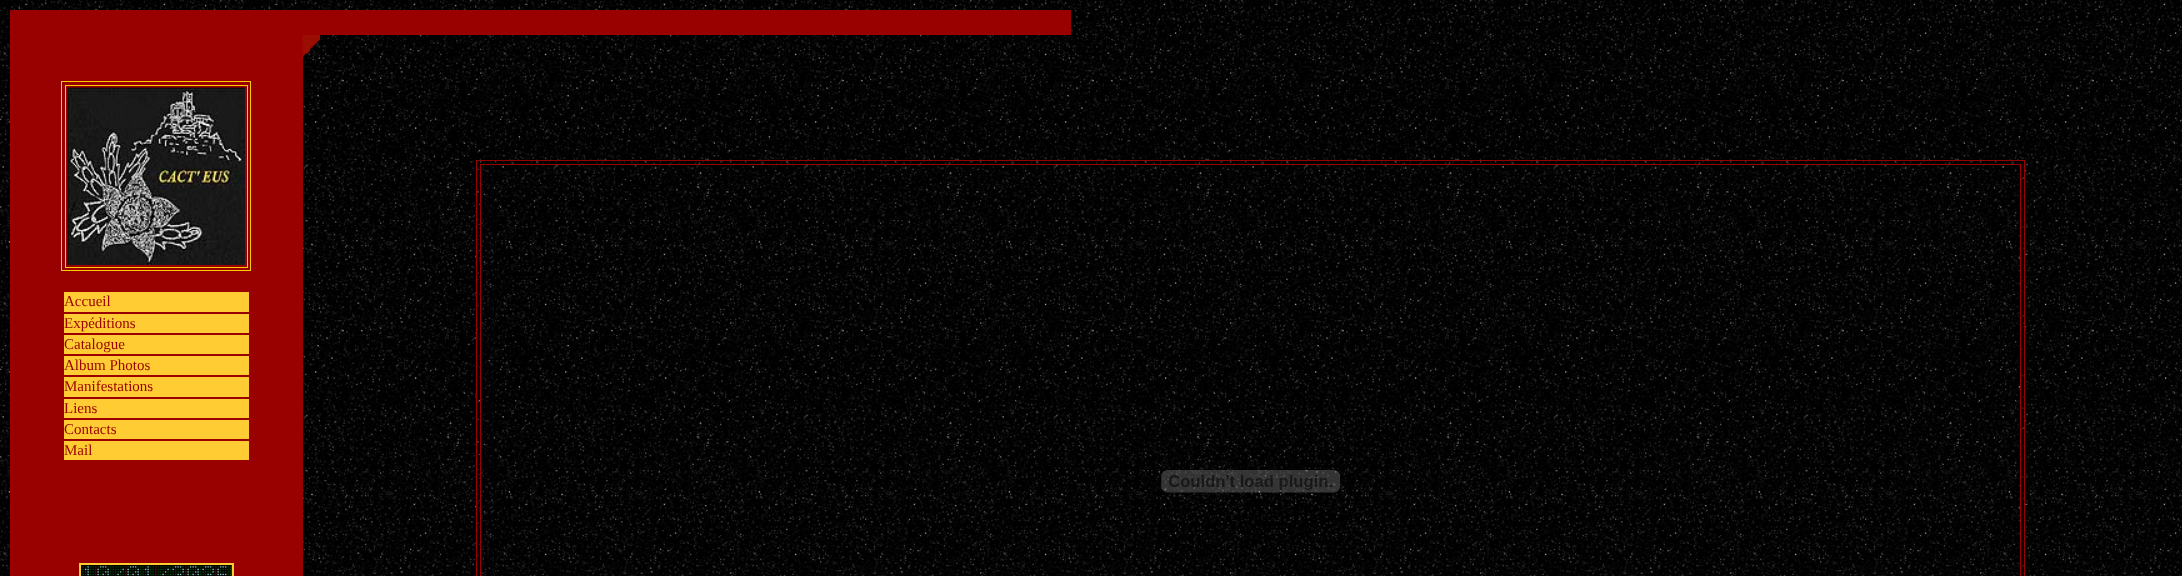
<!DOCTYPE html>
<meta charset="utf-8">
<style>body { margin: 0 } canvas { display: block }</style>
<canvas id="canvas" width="2182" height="576"></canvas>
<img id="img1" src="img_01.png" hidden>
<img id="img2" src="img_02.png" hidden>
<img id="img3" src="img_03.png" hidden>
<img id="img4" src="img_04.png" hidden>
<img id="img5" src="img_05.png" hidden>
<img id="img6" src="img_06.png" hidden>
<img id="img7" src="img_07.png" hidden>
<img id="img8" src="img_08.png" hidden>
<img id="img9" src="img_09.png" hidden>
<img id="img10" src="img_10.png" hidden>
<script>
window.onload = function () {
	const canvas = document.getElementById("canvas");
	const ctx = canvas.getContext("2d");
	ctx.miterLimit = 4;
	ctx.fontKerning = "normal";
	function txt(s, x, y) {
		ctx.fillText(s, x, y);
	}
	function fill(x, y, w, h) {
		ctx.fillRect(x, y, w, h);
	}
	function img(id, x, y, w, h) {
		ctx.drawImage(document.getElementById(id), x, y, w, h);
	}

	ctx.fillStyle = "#FFFFFF";
	fill(0, 0, 2182, 576);
	img("img1", 0, 0, 2182, 576);
	ctx.fillStyle = "#990000";
	fill(10, 10, 293, 566);
	fill(303, 10, 768, 25);
	img("img2", 302, 35, 18, 22);
	ctx.strokeStyle = "#FFCC00";
	ctx.strokeRect(61.5, 81.5, 189, 189);
	ctx.strokeRect(65.5, 85.5, 182, 182);
	img("img3", 67, 87, 178, 178);
	ctx.fillStyle = "#FFCC33";
	fill(64, 292, 185, 20);
	fill(64, 314, 185, 19);
	fill(64, 335, 185, 19);
	fill(64, 356, 185, 19);
	fill(64, 377, 185, 20);
	fill(64, 399, 185, 19);
	fill(64, 420, 185, 19);
	fill(64, 441, 185, 19);
	ctx.strokeStyle = "#990000";
	ctx.strokeRect(476.5, 160.5, 1548, 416);
	ctx.strokeRect(480.5, 164.5, 1540, 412);
	img("img4", 1161, 470, 179, 23);
	ctx.strokeStyle = "#FFCC33";
	ctx.strokeRect(79.5, 563.5, 154, 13);
	ctx.strokeRect(80.5, 564.5, 152, 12);
	img("img5", 81, 565, 16, 11);
	img("img6", 96, 565, 16, 11);
	img("img7", 111, 565, 16, 11);
	img("img6", 126, 565, 16, 11);
	img("img8", 141, 565, 16, 11);
	img("img7", 156, 565, 16, 11);
	img("img9", 171, 565, 16, 11);
	img("img6", 186, 565, 16, 11);
	img("img9", 201, 565, 16, 11);
	img("img10", 216, 565, 16, 11);
	ctx.font = "15px Liberation Serif";
	ctx.fillStyle = "#990000";
	txt("Accueil", 64, 306);
	txt("Expéditions", 64, 328);
	txt("Catalogue", 64, 349);
	txt("Album Photos", 64, 370);
	txt("Manifestations", 64, 391);
	txt("Liens", 64, 413);
	txt("Contacts", 64, 434);
	txt("Mail", 64, 455);
};
</script>
